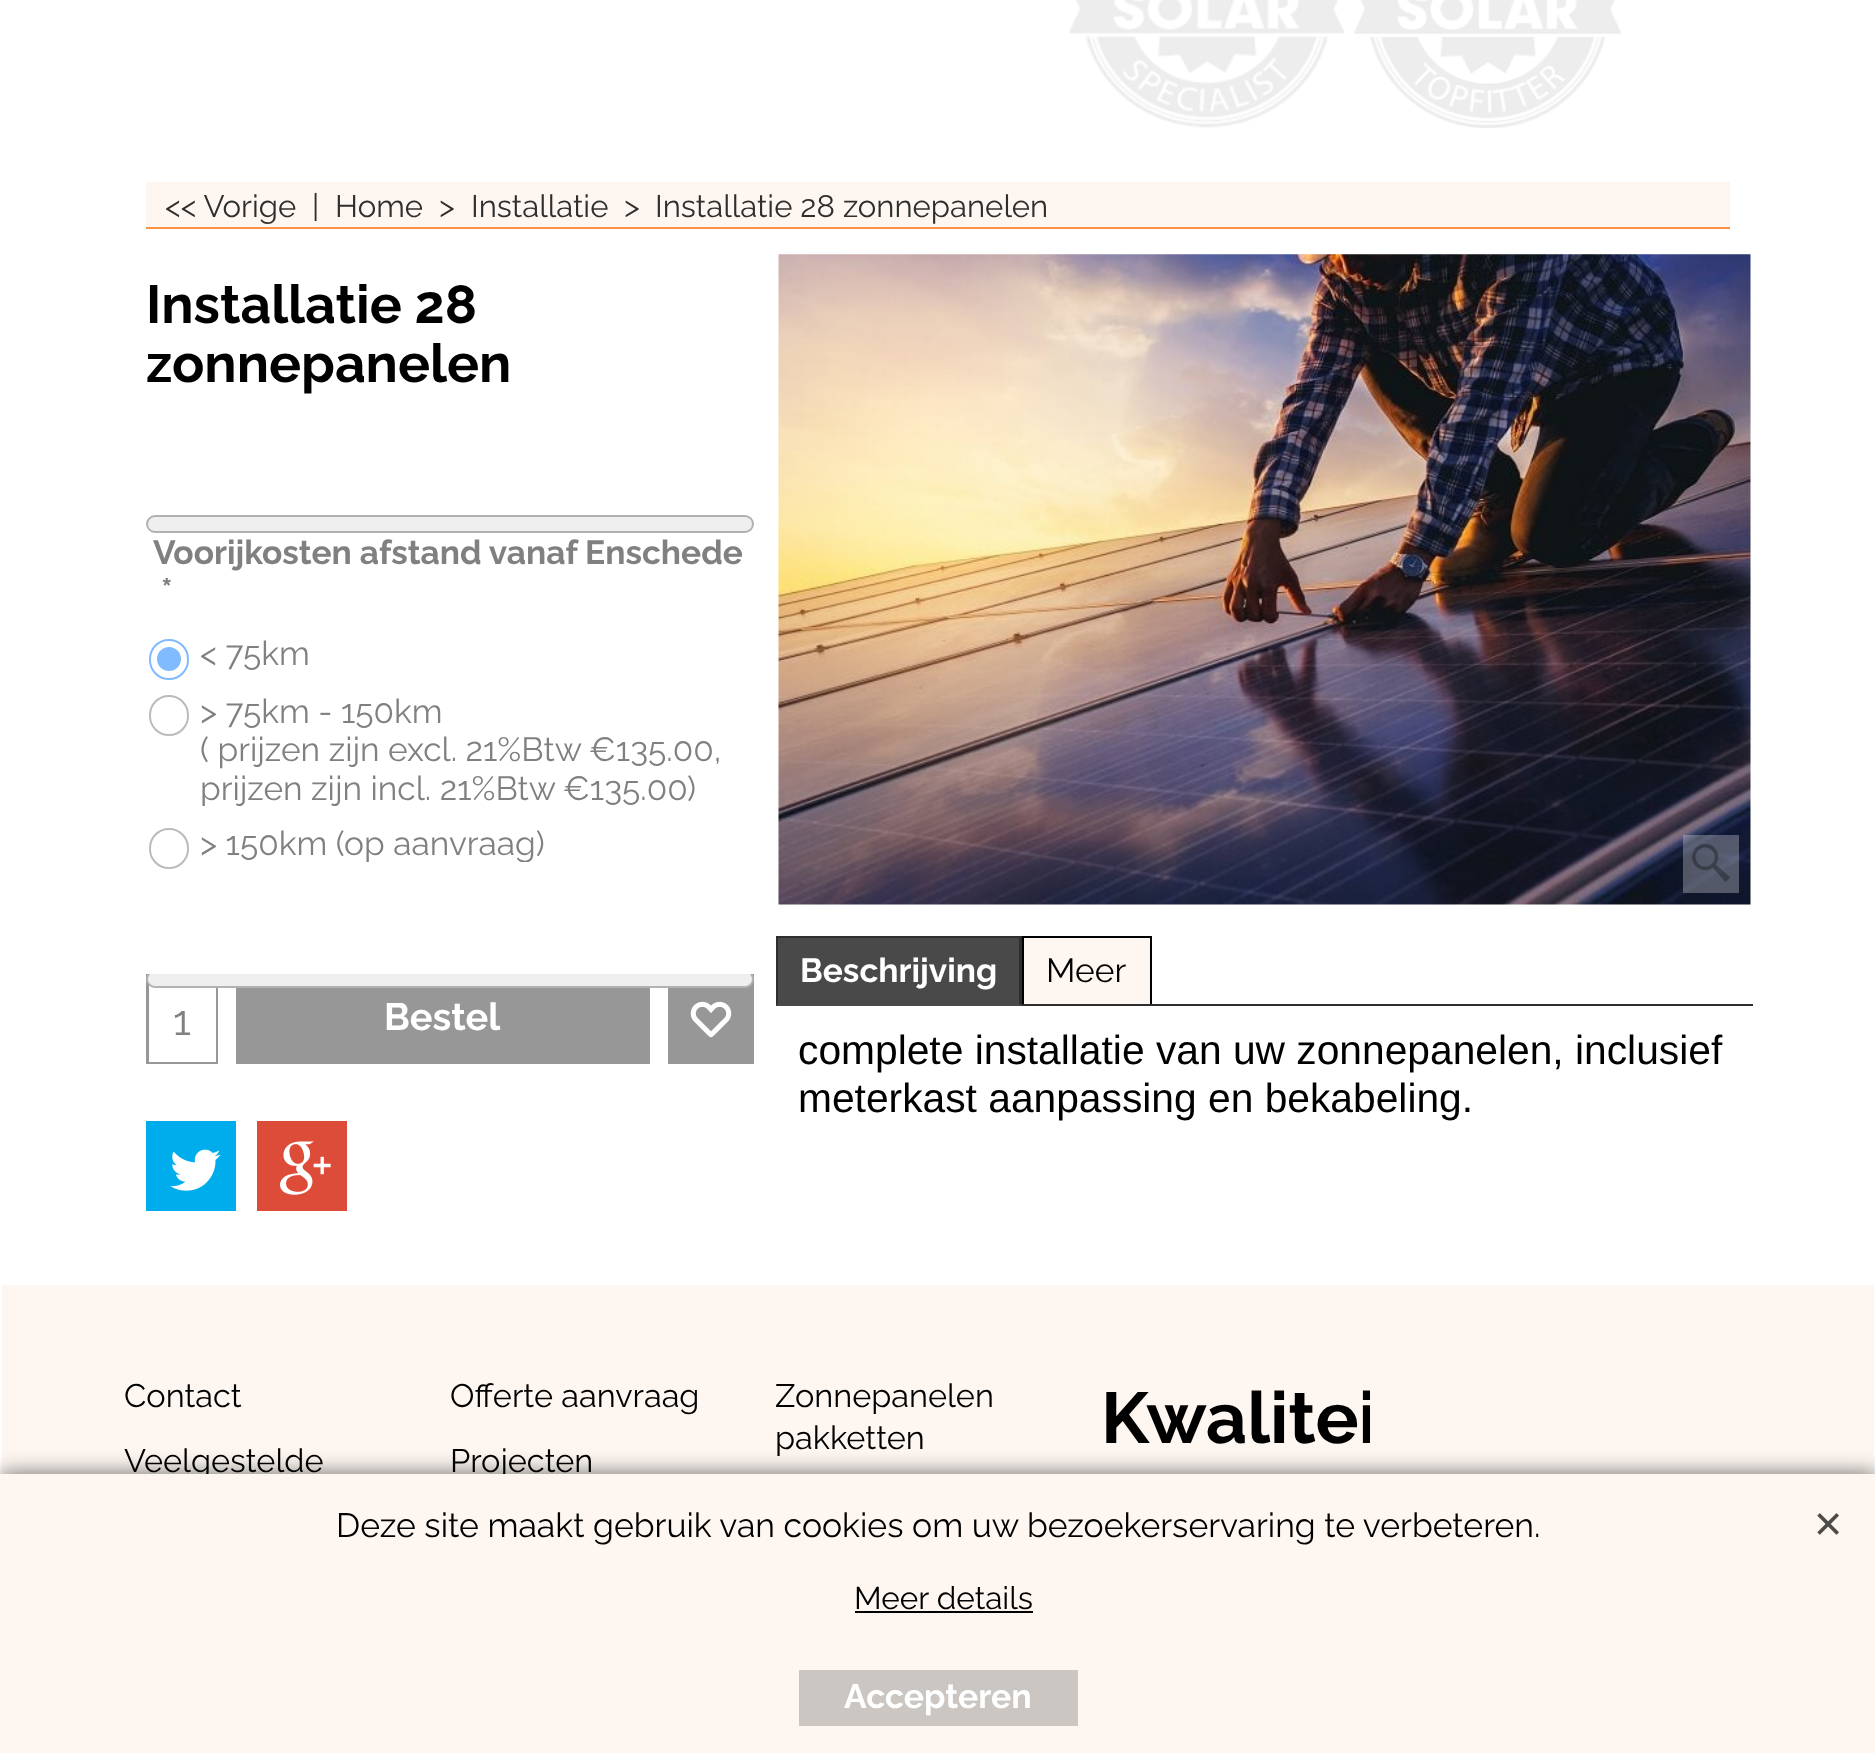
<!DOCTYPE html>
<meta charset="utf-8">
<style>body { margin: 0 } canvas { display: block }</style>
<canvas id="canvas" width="1875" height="1753"></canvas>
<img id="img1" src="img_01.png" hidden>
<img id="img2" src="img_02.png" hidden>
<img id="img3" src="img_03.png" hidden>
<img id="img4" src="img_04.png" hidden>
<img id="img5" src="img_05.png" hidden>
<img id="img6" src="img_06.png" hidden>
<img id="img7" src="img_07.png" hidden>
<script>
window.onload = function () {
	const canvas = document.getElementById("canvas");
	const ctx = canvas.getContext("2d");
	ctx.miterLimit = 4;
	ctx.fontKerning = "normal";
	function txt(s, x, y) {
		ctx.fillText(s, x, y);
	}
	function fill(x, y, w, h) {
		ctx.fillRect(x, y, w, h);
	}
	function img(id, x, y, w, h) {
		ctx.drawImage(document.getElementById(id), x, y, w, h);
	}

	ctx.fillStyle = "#FFFFFF";
	fill(0, 0, 1875, 1753);
	img("img1", 1069, 0, 552, 128);
	ctx.fillStyle = "#FEF7F1";
	fill(146, 182, 1584, 45);
	ctx.fillStyle = "#FB9241";
	fill(146, 227, 1584, 2);
	ctx.fillStyle = "#EFEFEF";
	ctx.beginPath();
	ctx.roundRect(147, 516, 606, 16, 8);
	ctx.fill();
	ctx.strokeStyle = "#B2B2B2";
	ctx.lineWidth = 2;
	ctx.stroke();
	ctx.beginPath();
	ctx.roundRect(150, 640, 38, 39, 19);
	ctx.strokeStyle = "#80BAFF";
	ctx.stroke();
	ctx.fillStyle = "#80BAFF";
	ctx.beginPath();
	ctx.arc(169, 659, 12, 0, Math.PI * 2);
	ctx.fill();
	ctx.beginPath();
	ctx.roundRect(150, 696, 38, 39, 19);
	ctx.strokeStyle = "#BBBBBB";
	ctx.stroke();
	ctx.beginPath();
	ctx.roundRect(150, 829, 38, 39, 19);
	ctx.stroke();
	ctx.fillStyle = "#979797";
	fill(146, 974, 72, 90);
	ctx.fillStyle = "#FFFFFF";
	fill(149, 985, 67, 77);
	ctx.fillStyle = "#979797";
	fill(668, 974, 86, 90);
	ctx.save();
	ctx.beginPath();
	ctx.rect(146, 974, 608, 90);
	ctx.clip();
	ctx.fillStyle = "#EFEFEF";
	ctx.beginPath();
	ctx.roundRect(147, 971, 606, 16, 8);
	ctx.fill();
	ctx.strokeStyle = "#B2B2B2";
	ctx.stroke();
	ctx.restore();
	fill(236, 988, 414, 76);
	img("img2", 690, 1001, 42, 37);
	ctx.fillStyle = "#00ADEC";
	fill(146, 1121, 90, 90);
	img("img3", 170, 1149, 51, 42);
	ctx.fillStyle = "#DD4C39";
	fill(257, 1121, 90, 90);
	img("img4", 280, 1141, 51, 54);
	img("img5", 778, 254, 973, 651);
	ctx.fillStyle = "rgba(241, 241, 241, 0.3)";
	fill(1683, 835, 56, 58);
	img("img6", 1692, 844, 38, 38);
	ctx.fillStyle = "#494949";
	fill(776, 938, 246, 68);
	ctx.fillStyle = "#2E2E2E";
	fill(776, 936, 246, 2);
	ctx.beginPath();
	ctx.moveTo(1022, 936);
	ctx.lineTo(1022, 1006);
	ctx.lineTo(1019, 1004);
	ctx.lineTo(1019, 938);
	ctx.closePath();
	ctx.fill();
	ctx.beginPath();
	ctx.moveTo(776, 1006);
	ctx.lineTo(776, 936);
	ctx.lineTo(778, 938);
	ctx.lineTo(778, 1004);
	ctx.closePath();
	ctx.fill();
	ctx.fillStyle = "#FEF7F1";
	fill(1024, 938, 126, 66);
	ctx.fillStyle = "#000000";
	fill(1022, 936, 130, 2);
	fill(1150, 936, 2, 68);
	fill(1022, 936, 2, 68);
	ctx.fillStyle = "#2E2E2E";
	fill(1022, 1004, 731, 2);
	ctx.fillStyle = "#FEF7F1";
	fill(2, 1285, 1872, 189);
	ctx.fillStyle = "#666666";
	ctx.filter = "blur(11px)";
	ctx.beginPath();
	ctx.rect(0, 1474, 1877, 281);
	ctx.fill();
	ctx.filter = "none";
	ctx.font = "31.1px Raleway";
	ctx.fillStyle = "#2E2E2E";
	txt("<< Vorige", 165, 217);
	txt("|", 312, 217);
	txt("Home", 335, 217);
	txt(">", 439, 217);
	txt("Installatie", 471, 217);
	txt(">", 624, 217);
	txt("Installatie 28 zonnepanelen", 655, 217);
	ctx.font = "bold 53.5px Raleway";
	ctx.fillStyle = "#000000";
	txt("Installatie 28", 146, 323);
	txt("zonnepanelen", 146, 382);
	ctx.font = "bold 33.5px Raleway";
	ctx.fillStyle = "#808080";
	txt("Voorijkosten afstand vanaf Enschede", 153, 564);
	txt("*", 161, 602);
	ctx.font = "33.5px Raleway";
	txt("< 75km", 200, 665);
	txt("> 75km - 150km", 200, 723);
	txt("( prijzen zijn excl. 21%Btw", 200, 761);
	txt("€135.00,", 589, 761);
	ctx.save();
	ctx.beginPath();
	ctx.rect(200, 691, 554, 115);
	ctx.clip();
	txt("prijzen zijn incl. 21%Btw", 200, 800);
	ctx.restore();
	txt("€135.00", 563, 800);
	txt(")", 687, 800);
	ctx.save();
	ctx.beginPath();
	ctx.rect(200, 824, 554, 38);
	ctx.clip();
	txt("> 150km (op aanvraag)", 200, 855);
	ctx.restore();
	ctx.font = "42px Raleway";
	txt("1", 173, 1035);
	ctx.font = "bold 38px Raleway";
	ctx.fillStyle = "#FFFFFF";
	txt("Bestel", 384, 1030);
	ctx.font = "bold 33.5px Raleway";
	txt("Beschrijving", 800, 982);
	ctx.font = "33.5px Raleway";
	ctx.fillStyle = "#000000";
	txt("Meer", 1046, 982);
	ctx.font = "40.75px Liberation Sans";
	txt("complete installatie van uw zonnepanelen, inclusief", 798, 1064);
	txt("meterkast aanpassing en bekabeling.", 798, 1112);
	ctx.font = "32.5px Raleway";
	txt("Contact", 124, 1407);
	txt("Veelgestelde", 124, 1472);
	txt("Offerte aanvraag", 450, 1407);
	txt("Projecten", 450, 1472);
	txt("Zonnepanelen", 775, 1407);
	txt("pakketten", 775, 1449);
	ctx.save();
	ctx.beginPath();
	ctx.rect(1100, 1375, 270, 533);
	ctx.clip();
	ctx.font = "bold 72px Raleway";
	txt("Kwalitei", 1101, 1443);
	ctx.restore();
	ctx.fillStyle = "#FEF7F1";
	fill(0, 1474, 1875, 279);
	ctx.font = "33.75px Raleway";
	ctx.fillStyle = "#000000";
	txt("Deze site maakt gebruik van cookies om uw bezoekerservaring te verbeteren.", 336, 1537);
	ctx.font = "31.5px Raleway";
	txt("Meer details", 854, 1609);
	fill(855, 1611, 178, 2);
	img("img7", 1817, 1513, 22, 22);
	ctx.fillStyle = "#CBC6C1";
	fill(799, 1670, 279, 56);
	ctx.font = "bold 33.75px Raleway";
	ctx.fillStyle = "#FFFFFF";
	txt("Accepteren", 844, 1708);
};
</script>
